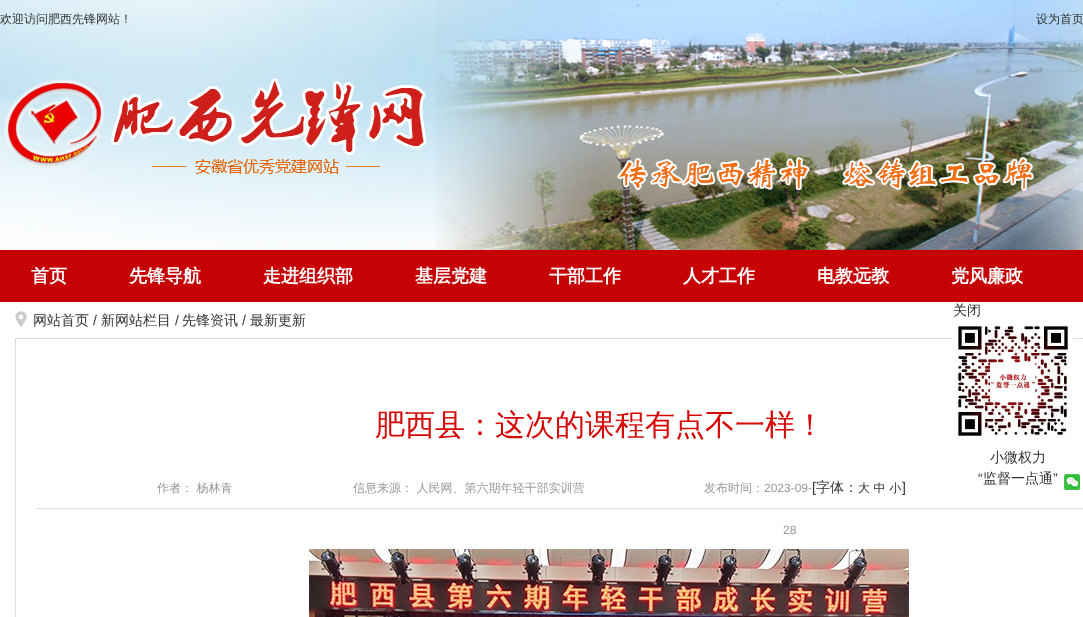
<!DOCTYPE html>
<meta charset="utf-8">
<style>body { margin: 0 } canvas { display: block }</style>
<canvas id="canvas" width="1083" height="617"></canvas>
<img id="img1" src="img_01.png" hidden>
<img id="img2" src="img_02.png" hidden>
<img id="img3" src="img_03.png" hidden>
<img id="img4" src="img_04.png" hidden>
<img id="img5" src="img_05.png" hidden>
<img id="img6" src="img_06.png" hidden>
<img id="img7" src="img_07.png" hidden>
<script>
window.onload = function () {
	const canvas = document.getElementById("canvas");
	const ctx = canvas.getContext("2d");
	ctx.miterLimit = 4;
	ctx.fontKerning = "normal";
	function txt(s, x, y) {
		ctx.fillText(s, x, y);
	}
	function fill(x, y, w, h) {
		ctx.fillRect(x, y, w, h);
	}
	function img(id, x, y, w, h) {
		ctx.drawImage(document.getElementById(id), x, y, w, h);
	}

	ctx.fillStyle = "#FFFFFF";
	fill(0, 0, 1083, 617);
	img("img1", 0, 0, 1083, 250);
	img("img2", 4, 78, 423, 96);
	img("img3", 435, 0, 648, 250);
	ctx.fillStyle = "#C60204";
	fill(0, 250, 1083, 52);
	img("img4", 15, 311, 12, 16);
	ctx.strokeStyle = "#DDDDDD";
	ctx.strokeRect(15.5, 338.5, 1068, 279);
	ctx.fillStyle = "#DDDDDD";
	fill(36, 508, 1047, 1);
	img("img5", 1064, 474, 16, 16);
	img("img6", 309, 549, 600, 68);
	img("img7", 953, 326, 120, 115);
	ctx.font = "500 12px WenQuanYi Zen Hei";
	ctx.fillStyle = "#333333";
	txt("欢迎访问肥西先锋网站！", 0, 23);
	txt("设为首页", 1036, 23);
	ctx.font = "bold 18px WenQuanYi Zen Hei";
	ctx.fillStyle = "#FFFFFF";
	txt("首页", 31, 282);
	txt("先锋导航", 129, 282);
	txt("走进组织部", 263, 282);
	txt("基层党建", 415, 282);
	txt("干部工作", 549, 282);
	txt("人才工作", 683, 282);
	txt("电教远教", 817, 282);
	txt("党风廉政", 951, 282);
	ctx.font = "500 14px WenQuanYi Zen Hei";
	ctx.fillStyle = "#333333";
	txt("网站首页", 33, 325);
	ctx.font = "14px Liberation Sans";
	txt("/", 93, 325);
	ctx.font = "500 14px WenQuanYi Zen Hei";
	txt("新网站栏目", 101, 325);
	ctx.font = "14px Liberation Sans";
	txt("/", 175, 325);
	ctx.font = "500 14px WenQuanYi Zen Hei";
	txt("先锋资讯", 182, 325);
	ctx.font = "14px Liberation Sans";
	txt("/", 242, 325);
	ctx.font = "500 14px WenQuanYi Zen Hei";
	txt("最新更新", 250, 325);
	ctx.font = "500 30px WenQuanYi Zen Hei";
	ctx.fillStyle = "#D60808";
	txt("肥西县：这次的课程有点不一样！", 375, 435);
	ctx.font = "500 12px WenQuanYi Zen Hei";
	ctx.fillStyle = "#999999";
	txt("作者： 杨林青", 157, 492);
	txt("信息来源： 人民网、第六期年轻干部实训营", 353, 492);
	txt("发布时间：", 704, 492);
	ctx.font = "12px Liberation Sans";
	txt("2023-09-", 764, 492);
	txt("28", 783, 534);
	ctx.font = "14px Liberation Sans";
	ctx.fillStyle = "#333333";
	txt("[", 812, 492);
	ctx.font = "500 14px WenQuanYi Zen Hei";
	txt("字体：", 816, 492);
	ctx.font = "500 12px WenQuanYi Zen Hei";
	txt("大 中 小", 858, 492);
	ctx.font = "14px Liberation Sans";
	txt("]", 902, 492);
	ctx.font = "500 14px WenQuanYi Zen Hei";
	txt("关闭", 953, 315);
	txt("小微权力", 990, 462);
	ctx.font = "14px Liberation Sans";
	txt("“", 978, 483);
	ctx.font = "500 14px WenQuanYi Zen Hei";
	txt("监督一点通", 983, 483);
	ctx.font = "14px Liberation Sans";
	txt("”", 1053, 483);
};
</script>
